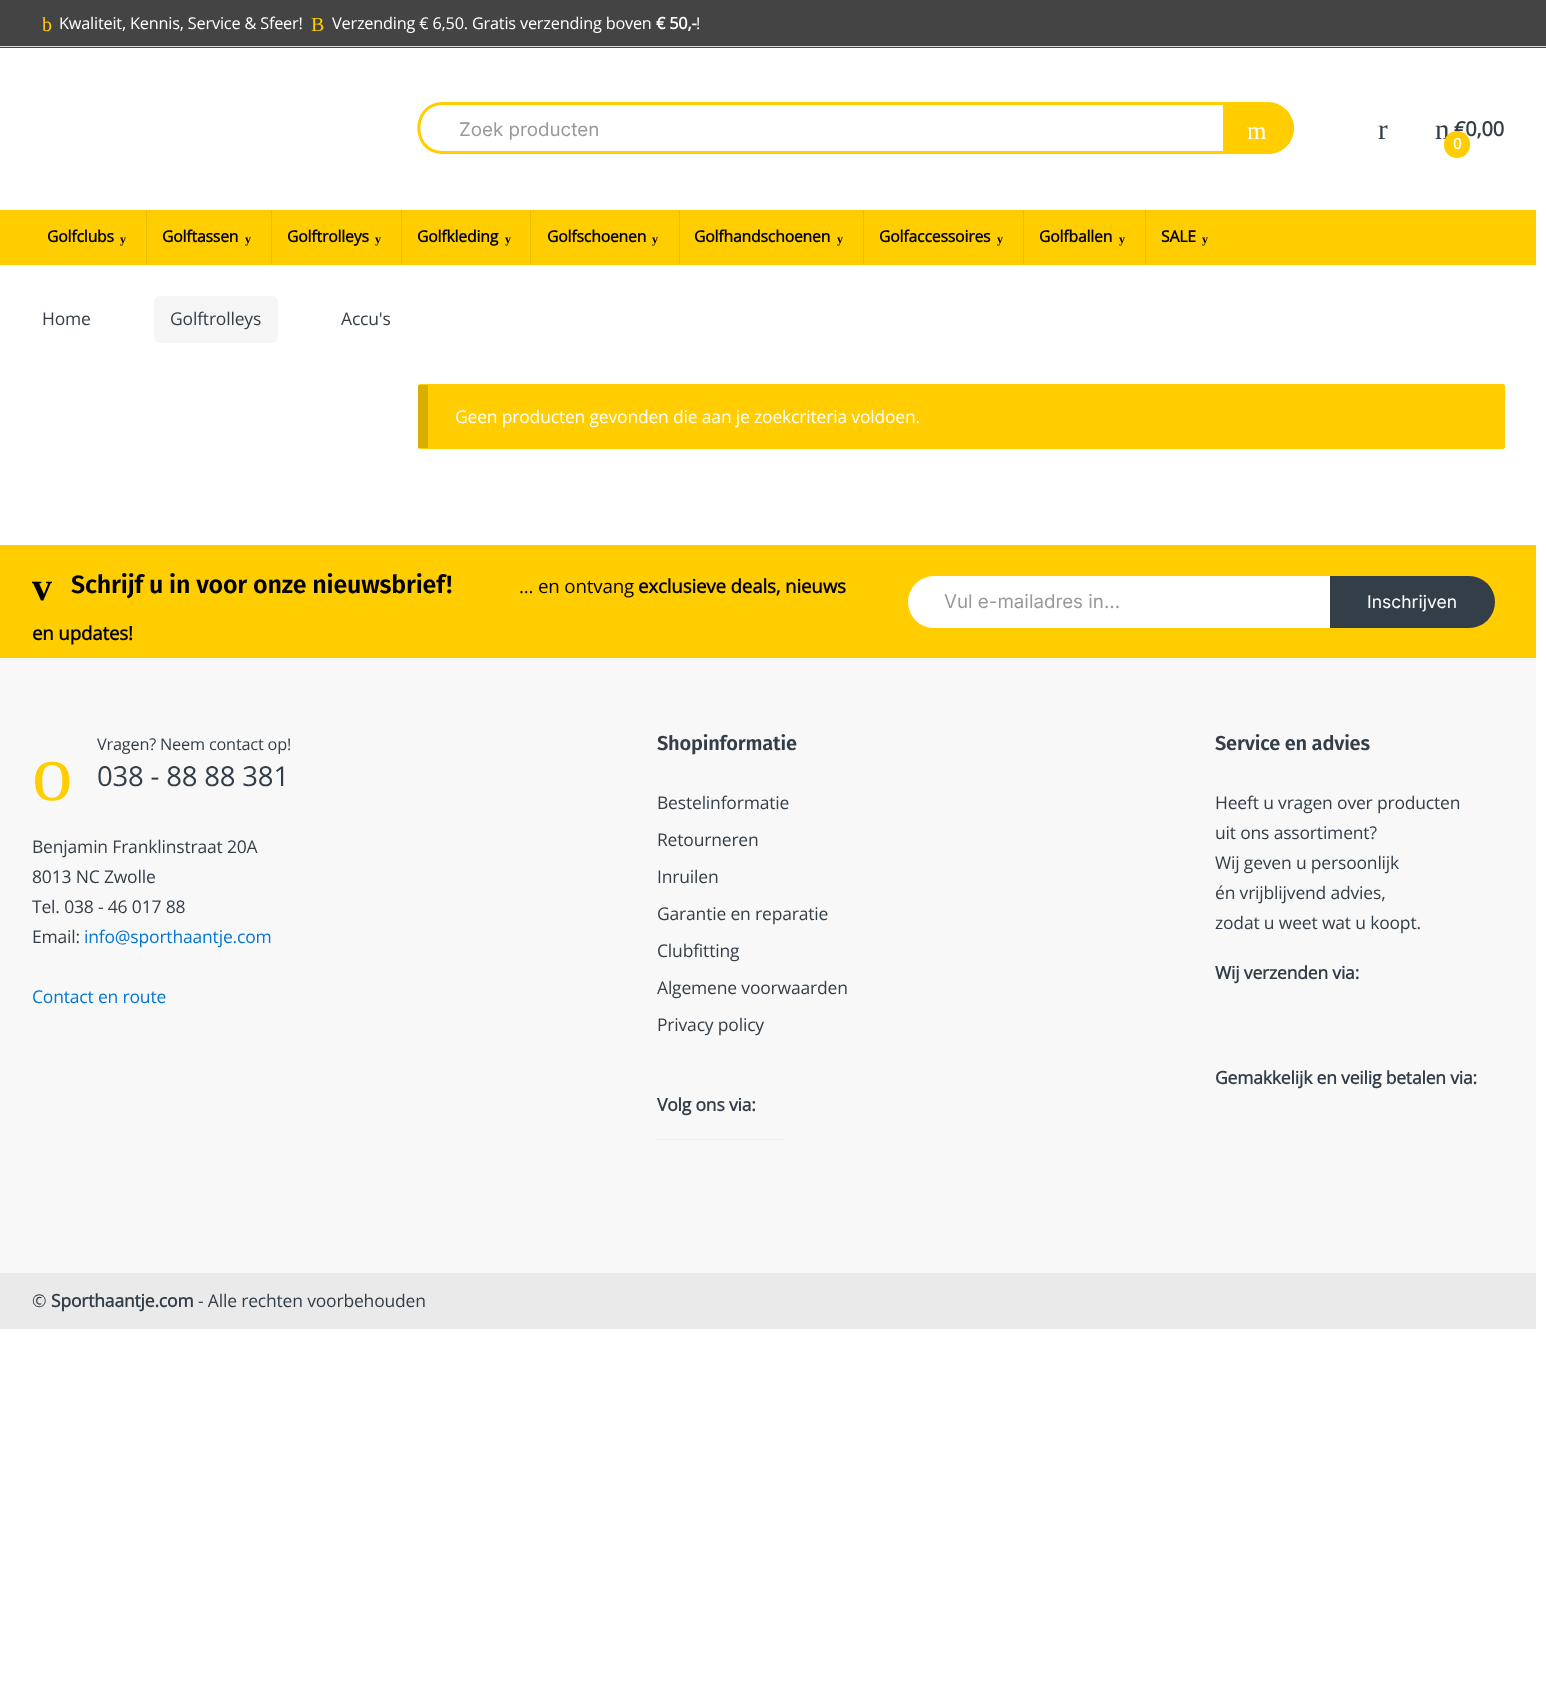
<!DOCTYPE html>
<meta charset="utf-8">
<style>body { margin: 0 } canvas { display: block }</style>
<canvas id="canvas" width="1546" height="1699"></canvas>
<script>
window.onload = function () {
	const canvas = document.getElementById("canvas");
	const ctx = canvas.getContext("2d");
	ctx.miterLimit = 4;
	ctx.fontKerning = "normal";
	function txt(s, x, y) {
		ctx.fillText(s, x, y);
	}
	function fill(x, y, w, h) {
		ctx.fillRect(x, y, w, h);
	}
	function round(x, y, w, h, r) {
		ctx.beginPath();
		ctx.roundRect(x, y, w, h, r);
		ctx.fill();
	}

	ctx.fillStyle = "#FFFFFF";
	fill(0, 0, 1546, 1699);
	ctx.fillStyle = "#444444";
	fill(0, 0, 1546, 48);
	ctx.fillStyle = "#DDDDDD";
	fill(0, 46, 1546, 1);
	ctx.fillStyle = "#FFCD00";
	ctx.beginPath();
	ctx.moveTo(443, 102);
	ctx.lineTo(1225, 102);
	ctx.lineTo(1225, 154);
	ctx.lineTo(443, 154);
	ctx.bezierCurveTo(409, 154, 409, 102, 443, 102);
	ctx.closePath();
	ctx.moveTo(443, 105);
	ctx.lineTo(1225, 105);
	ctx.lineTo(1225, 151);
	ctx.lineTo(443, 151);
	ctx.bezierCurveTo(413, 151, 413, 105, 443, 105);
	ctx.closePath();
	ctx.fill("evenodd");
	ctx.beginPath();
	ctx.roundRect(1223, 103, 71, 51, [0, 25.5, 25.5, 0]);
	ctx.fill();
	ctx.beginPath();
	ctx.moveTo(1222, 102);
	ctx.lineTo(1268, 102);
	ctx.bezierCurveTo(1282, 102, 1294, 114, 1294, 128);
	ctx.bezierCurveTo(1294, 142, 1282, 154, 1268, 154);
	ctx.lineTo(1222, 154);
	ctx.closePath();
	ctx.moveTo(1222, 105);
	ctx.lineTo(1268, 105);
	ctx.bezierCurveTo(1281, 105, 1291, 115, 1291, 128);
	ctx.bezierCurveTo(1291, 141, 1281, 151, 1268, 151);
	ctx.lineTo(1222, 151);
	ctx.closePath();
	ctx.fill("evenodd");
	fill(0, 210, 1536, 55);
	ctx.fillStyle = "#EBBD00";
	fill(146, 210, 1, 55);
	fill(271, 210, 1, 55);
	fill(401, 210, 1, 55);
	fill(530, 210, 1, 55);
	fill(679, 210, 1, 55);
	fill(863, 210, 1, 55);
	fill(1023, 210, 1, 55);
	fill(1145, 210, 1, 55);
	ctx.fillStyle = "#F5F5F5";
	round(154, 296, 124, 47, 6);
	ctx.fillStyle = "#FFCD00";
	round(418, 384, 1087, 65, 2.5);
	ctx.fillStyle = "rgba(0, 0, 0, 0.15)";
	fill(418, 385, 10, 63);
	ctx.fillStyle = "#FFCD00";
	fill(0, 545, 1536, 113);
	ctx.fillStyle = "#FFFFFF";
	ctx.beginPath();
	ctx.roundRect(908, 576, 423, 52, [26, 0, 0, 26]);
	ctx.fill();
	ctx.fillStyle = "#333E48";
	ctx.beginPath();
	ctx.roundRect(1330, 576, 165, 52, [0, 26, 26, 0]);
	ctx.fill();
	ctx.fillStyle = "#F8F8F8";
	fill(0, 658, 1536, 615);
	ctx.fillStyle = "#ECEEEF";
	fill(656, 1139, 127, 1);
	ctx.fillStyle = "#EAEAEA";
	fill(0, 1273, 1536, 56);
	ctx.letterSpacing = "-0.18px";
	ctx.font = "20px Liberation Serif";
	ctx.fillStyle = "#FFCD00";
	txt("b", 42, 31);
	ctx.font = "16.25px Open Sans";
	ctx.fillStyle = "#FFFFFF";
	txt("Kwaliteit, Kennis, Service & Sfeer!", 59, 29);
	ctx.font = "20px Liberation Serif";
	ctx.fillStyle = "#FFCD00";
	txt("B", 311, 31);
	ctx.font = "16.25px Open Sans";
	ctx.fillStyle = "#FFFFFF";
	txt("Verzending € 6,50. Gratis verzending boven", 332, 29);
	ctx.font = "bold 16.25px Open Sans";
	txt("€ 50,-", 656, 29);
	ctx.font = "16.25px Open Sans";
	txt("!", 696, 29);
	ctx.letterSpacing = "0px";
	ctx.font = "18.75px Inter";
	ctx.fillStyle = "#999999";
	txt("Zoek producten", 459, 136);
	ctx.font = "25px Liberation Serif";
	ctx.fillStyle = "#FFFFFF";
	txt("m", 1247, 139);
	ctx.letterSpacing = "-0.18px";
	ctx.font = "29px Liberation Serif";
	ctx.fillStyle = "#333E48";
	txt("r", 1378, 139);
	txt("n", 1435, 139);
	ctx.font = "bold 20px Open Sans";
	txt("€0,00", 1454, 136);
	ctx.fillStyle = "#FFCD00";
	round(1444, 131, 26, 27, 13);
	ctx.font = "bold 15px Open Sans";
	ctx.fillStyle = "#FFFFFF";
	txt("0", 1453, 149);
	ctx.font = "bold 15.75px Open Sans";
	ctx.fillStyle = "#000000";
	txt("Golfclubs", 47, 242);
	ctx.font = "bold 12px Liberation Serif";
	txt("y", 120, 243);
	ctx.font = "bold 15.75px Open Sans";
	txt("Golftassen", 162, 242);
	ctx.font = "bold 12px Liberation Serif";
	txt("y", 245, 243);
	ctx.font = "bold 15.75px Open Sans";
	txt("Golftrolleys", 287, 242);
	ctx.font = "bold 12px Liberation Serif";
	txt("y", 375, 243);
	ctx.font = "bold 15.75px Open Sans";
	txt("Golfkleding", 417, 242);
	ctx.font = "bold 12px Liberation Serif";
	txt("y", 505, 243);
	ctx.font = "bold 15.75px Open Sans";
	txt("Golfschoenen", 547, 242);
	ctx.font = "bold 12px Liberation Serif";
	txt("y", 652, 243);
	ctx.font = "bold 15.75px Open Sans";
	txt("Golfhandschoenen", 694, 242);
	ctx.font = "bold 12px Liberation Serif";
	txt("y", 837, 243);
	ctx.font = "bold 15.75px Open Sans";
	txt("Golfaccessoires", 879, 242);
	ctx.font = "bold 12px Liberation Serif";
	txt("y", 997, 243);
	ctx.font = "bold 15.75px Open Sans";
	txt("Golfballen", 1039, 242);
	ctx.font = "bold 12px Liberation Serif";
	txt("y", 1119, 243);
	ctx.font = "bold 15.75px Open Sans";
	txt("SALE", 1161, 242);
	ctx.font = "bold 12px Liberation Serif";
	txt("y", 1202, 243);
	ctx.font = "17.5px Open Sans";
	ctx.fillStyle = "#333E48";
	txt("Home", 42, 325);
	txt("Golftrolleys", 170, 325);
	txt("Accu's", 341, 325);
	ctx.fillStyle = "#FFFFFF";
	txt("Geen producten gevonden die aan je zoekcriteria voldoen.", 455, 423);
	ctx.font = "bold 40px Liberation Serif";
	ctx.fillStyle = "#000000";
	txt("v", 32, 600);
	ctx.font = "600 25px Fira Sans";
	txt("Schrijf u in voor onze nieuwsbrief!", 71, 593);
	ctx.font = "18.75px Open Sans";
	txt("... en ontvang", 519, 593);
	ctx.font = "bold 18.75px Open Sans";
	txt("exclusieve deals, nieuws", 638, 593);
	txt("en updates!", 32, 640);
	ctx.letterSpacing = "0px";
	ctx.font = "18.75px Inter";
	ctx.fillStyle = "#999999";
	txt("Vul e-mailadres in...", 944, 608);
	ctx.font = "17.5px Inter";
	ctx.fillStyle = "#FFFFFF";
	txt("Inschrijven", 1367, 608);
	ctx.letterSpacing = "-0.18px";
	ctx.font = "81px Liberation Serif";
	ctx.fillStyle = "#FFCD00";
	txt("o", 32, 800);
	ctx.font = "16.25px Open Sans";
	ctx.fillStyle = "#333E48";
	txt("Vragen? Neem contact op!", 97, 750);
	ctx.font = "27.5px Open Sans";
	txt("038 - 88 88 381", 97, 786);
	ctx.font = "17.5px Open Sans";
	txt("Benjamin Franklinstraat 20A", 32, 853);
	txt("8013 NC Zwolle", 32, 883);
	txt("Tel. 038 - 46 017 88", 32, 913);
	txt("Email:", 32, 943);
	ctx.fillStyle = "#0275D8";
	txt("info@sporthaantje.com", 84, 943);
	txt("Contact en route", 32, 1003);
	ctx.font = "600 20px Fira Sans";
	ctx.fillStyle = "#333E48";
	txt("Shopinformatie", 657, 750);
	ctx.font = "17.5px Open Sans";
	txt("Bestelinformatie", 657, 809);
	txt("Retourneren", 657, 846);
	txt("Inruilen", 657, 883);
	txt("Garantie en reparatie", 657, 920);
	txt("Clubfitting", 657, 957);
	txt("Algemene voorwaarden", 657, 994);
	txt("Privacy policy", 657, 1031);
	ctx.font = "bold 17.5px Open Sans";
	txt("Volg ons via:", 657, 1111);
	ctx.font = "600 20px Fira Sans";
	txt("Service en advies", 1215, 750);
	ctx.font = "17.5px Open Sans";
	txt("Heeft u vragen over producten", 1215, 809);
	txt("uit ons assortiment?", 1215, 839);
	txt("Wij geven u persoonlijk", 1215, 869);
	txt("én vrijblijvend advies,", 1215, 899);
	txt("zodat u weet wat u koopt.", 1215, 929);
	ctx.font = "bold 17.5px Open Sans";
	txt("Wij verzenden via:", 1215, 979);
	txt("Gemakkelijk en veilig betalen via:", 1215, 1084);
	ctx.font = "17.5px Open Sans";
	txt("©", 32, 1307);
	ctx.font = "bold 17.5px Open Sans";
	txt("Sporthaantje.com", 51, 1307);
	ctx.font = "17.5px Open Sans";
	txt("- Alle rechten voorbehouden", 198, 1307);
};
</script>
